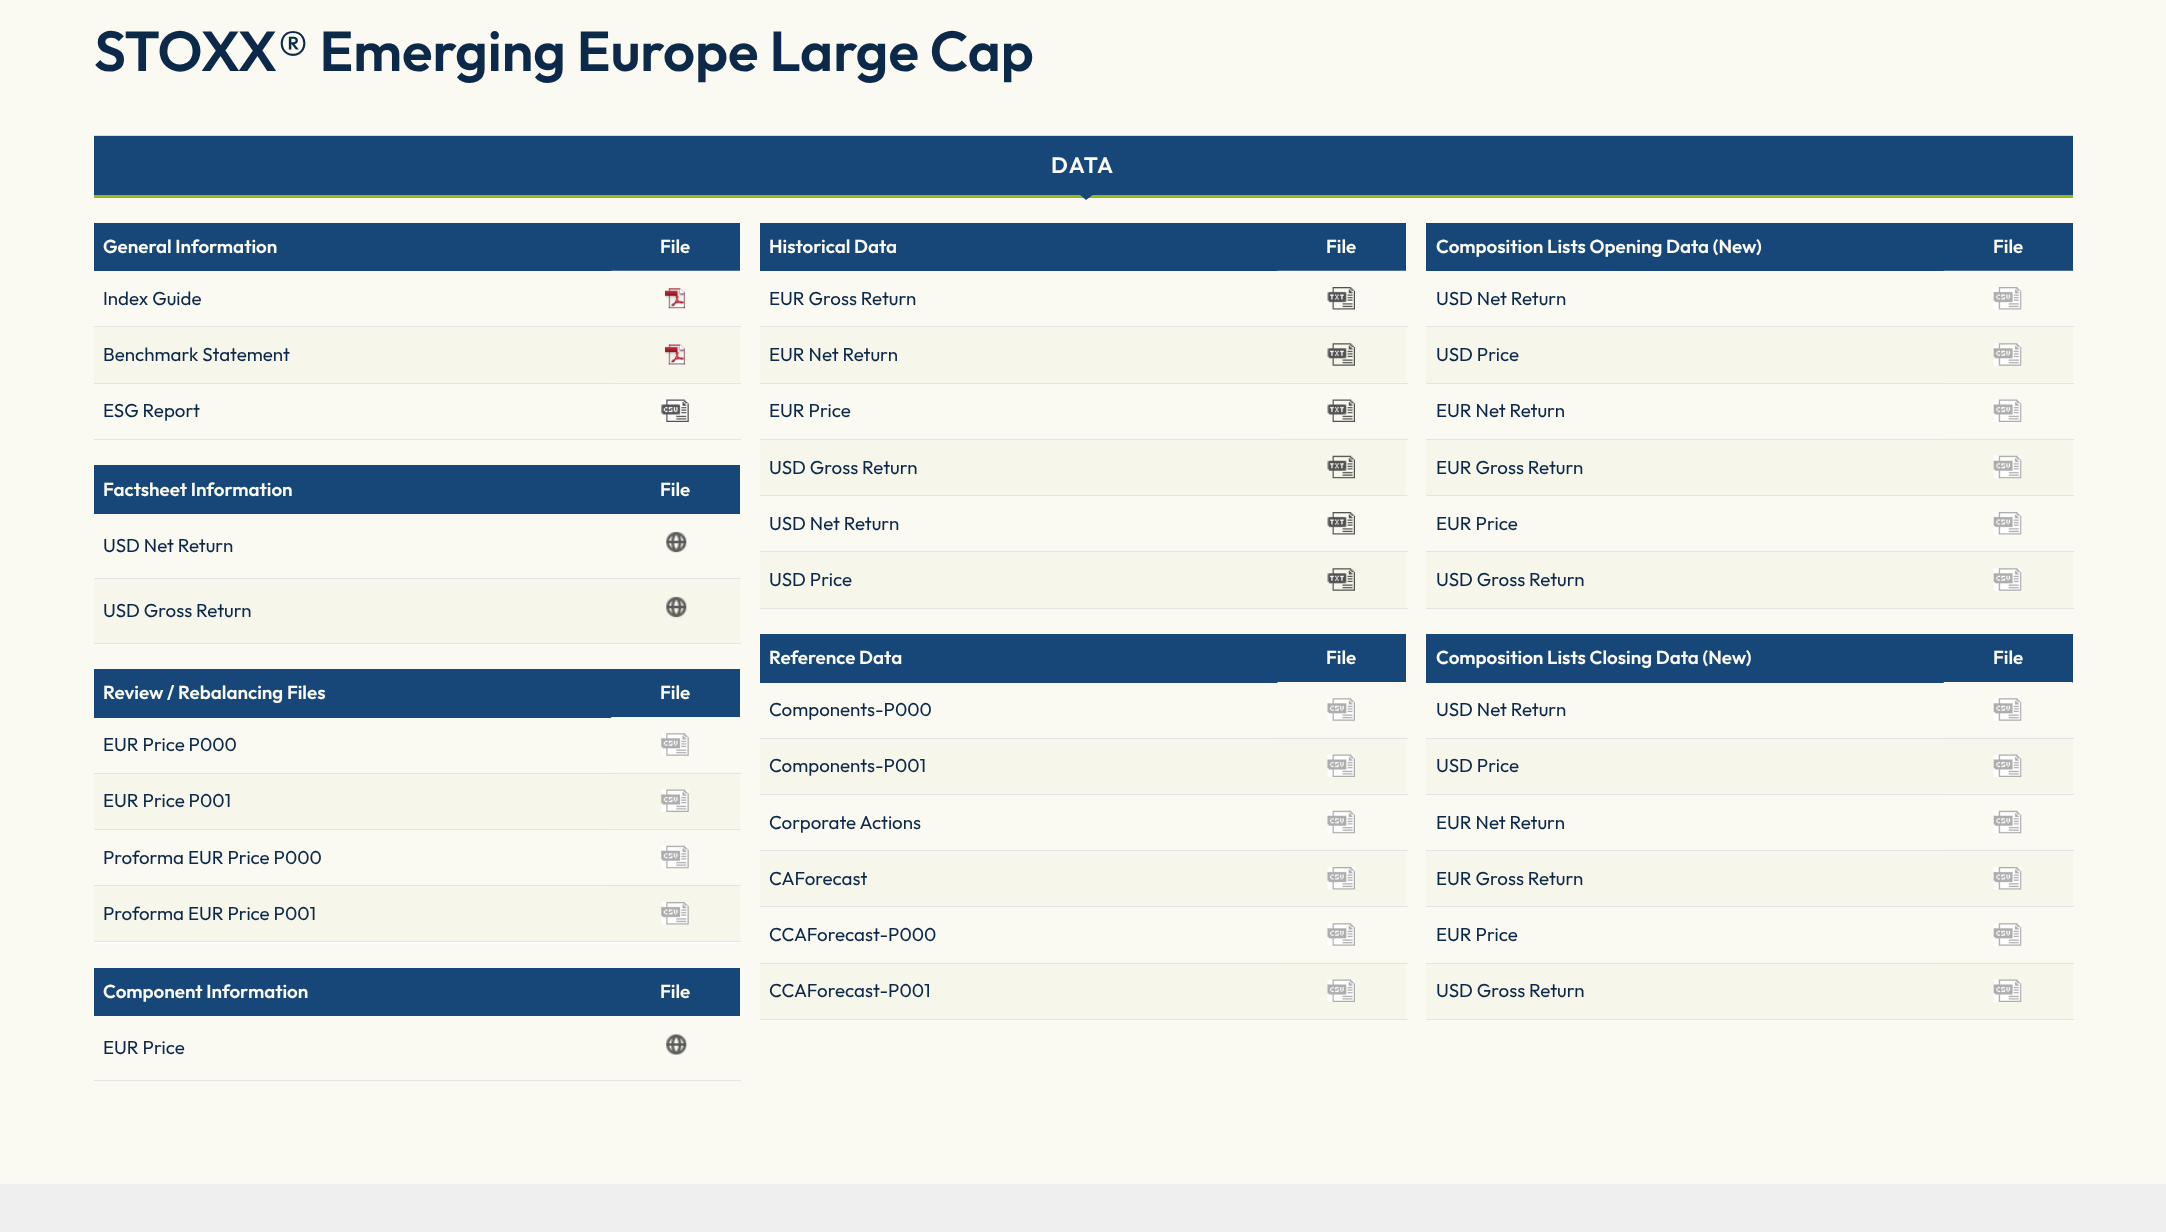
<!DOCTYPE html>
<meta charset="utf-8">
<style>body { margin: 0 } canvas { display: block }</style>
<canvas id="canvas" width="2166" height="1232"></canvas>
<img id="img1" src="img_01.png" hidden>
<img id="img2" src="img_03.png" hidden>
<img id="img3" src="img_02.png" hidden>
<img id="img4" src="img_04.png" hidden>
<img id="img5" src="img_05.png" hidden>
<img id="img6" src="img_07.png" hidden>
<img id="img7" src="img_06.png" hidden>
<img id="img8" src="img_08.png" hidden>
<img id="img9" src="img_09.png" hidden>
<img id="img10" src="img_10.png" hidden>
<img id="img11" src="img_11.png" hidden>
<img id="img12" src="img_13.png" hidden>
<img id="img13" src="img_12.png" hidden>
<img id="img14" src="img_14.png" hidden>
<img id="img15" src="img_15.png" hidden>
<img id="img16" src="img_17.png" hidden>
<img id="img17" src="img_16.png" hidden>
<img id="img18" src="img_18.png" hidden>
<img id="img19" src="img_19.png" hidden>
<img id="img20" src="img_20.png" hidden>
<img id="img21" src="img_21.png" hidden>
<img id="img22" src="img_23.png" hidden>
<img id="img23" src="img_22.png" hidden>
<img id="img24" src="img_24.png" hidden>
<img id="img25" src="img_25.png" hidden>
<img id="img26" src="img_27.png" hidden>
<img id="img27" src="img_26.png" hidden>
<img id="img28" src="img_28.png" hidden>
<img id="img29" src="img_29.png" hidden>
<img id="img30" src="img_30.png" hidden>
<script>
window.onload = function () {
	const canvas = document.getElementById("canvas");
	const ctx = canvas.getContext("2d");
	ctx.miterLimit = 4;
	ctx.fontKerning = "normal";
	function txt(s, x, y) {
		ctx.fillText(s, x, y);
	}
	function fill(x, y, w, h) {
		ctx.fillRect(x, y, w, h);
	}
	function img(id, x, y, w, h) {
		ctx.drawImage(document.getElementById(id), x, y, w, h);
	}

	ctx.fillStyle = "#FAFAF2";
	fill(0, 0, 2166, 1232);
	ctx.fillStyle = "#93B914";
	fill(94, 195, 1979, 3);
	ctx.fillStyle = "#DBD8D7";
	fill(94, 135, 1979, 1);
	ctx.fillStyle = "#174778";
	fill(94, 136, 1979, 59);
	ctx.beginPath();
	ctx.moveTo(1079, 194);
	ctx.lineTo(1094, 194);
	ctx.lineTo(1086, 200);
	ctx.closePath();
	ctx.fill();
	fill(94, 223, 646, 48);
	ctx.fillStyle = "#E4E4E4";
	fill(94, 326, 647, 1);
	img("img1", 611, 270, 129, 39);
	ctx.fillStyle = "#F6F6EA";
	fill(94, 327, 646, 56);
	img("img2", 611, 382, 129, 40);
	ctx.fillStyle = "#E4E4E4";
	fill(94, 383, 647, 1);
	img("img3", 665, 344, 20, 21);
	fill(94, 439, 647, 1);
	ctx.fillStyle = "#174778";
	fill(94, 465, 646, 49);
	ctx.fillStyle = "#E4E4E4";
	fill(94, 578, 647, 1);
	img("img4", 666, 531, 21, 22);
	ctx.fillStyle = "#F6F6EA";
	fill(94, 579, 646, 64);
	ctx.fillStyle = "#E4E4E4";
	fill(94, 643, 647, 1);
	img("img5", 666, 596, 21, 22);
	ctx.fillStyle = "#FFFFFF";
	fill(94, 942, 646, 1);
	ctx.fillStyle = "#174778";
	fill(94, 669, 646, 49);
	ctx.fillStyle = "#F6F6EA";
	fill(94, 774, 646, 55);
	img("img6", 611, 772, 129, 40);
	ctx.fillStyle = "#E4E4E4";
	fill(94, 773, 647, 1);
	img("img7", 611, 717, 129, 39);
	img("img8", 611, 828, 129, 41);
	fill(94, 829, 647, 1);
	ctx.fillStyle = "#F6F6EA";
	fill(94, 886, 646, 55);
	img("img9", 612, 884, 128, 41);
	ctx.fillStyle = "#E4E4E4";
	fill(94, 885, 647, 1);
	fill(94, 941, 647, 1);
	ctx.fillStyle = "#174778";
	fill(94, 968, 646, 48);
	ctx.fillStyle = "#E4E4E4";
	fill(94, 1080, 647, 1);
	img("img10", 666, 1034, 21, 21);
	ctx.fillStyle = "#174778";
	fill(760, 223, 646, 48);
	ctx.fillStyle = "#E4E4E4";
	fill(760, 326, 648, 1);
	img("img11", 1277, 270, 129, 40);
	ctx.fillStyle = "#F6F6EA";
	fill(760, 327, 646, 56);
	img("img12", 1278, 382, 128, 40);
	ctx.fillStyle = "#E4E4E4";
	fill(760, 383, 648, 1);
	img("img13", 1327, 343, 28, 23);
	ctx.fillStyle = "#F6F6EA";
	fill(760, 440, 646, 55);
	img("img14", 1278, 438, 128, 41);
	ctx.fillStyle = "#E4E4E4";
	fill(760, 439, 648, 1);
	fill(760, 495, 648, 1);
	fill(760, 551, 648, 1);
	img("img15", 1327, 512, 28, 23);
	ctx.fillStyle = "#F6F6EA";
	fill(760, 552, 646, 56);
	ctx.fillStyle = "#E4E4E4";
	fill(760, 608, 648, 1);
	img("img13", 1327, 568, 28, 23);
	ctx.fillStyle = "#174778";
	fill(760, 634, 518, 49);
	fill(1278, 634, 128, 48);
	ctx.fillStyle = "#F6F6EA";
	fill(760, 739, 646, 55);
	img("img16", 1277, 737, 129, 40);
	ctx.fillStyle = "#E4E4E4";
	fill(760, 738, 648, 1);
	img("img17", 1277, 682, 129, 39);
	img("img18", 1278, 793, 128, 41);
	fill(760, 794, 648, 1);
	ctx.fillStyle = "#F6F6EA";
	fill(760, 851, 646, 55);
	img("img19", 1278, 849, 128, 41);
	ctx.fillStyle = "#E4E4E4";
	fill(760, 850, 648, 1);
	fill(760, 906, 648, 1);
	ctx.fillStyle = "#F6F6EA";
	fill(760, 964, 646, 55);
	img("img16", 1277, 962, 129, 40);
	ctx.fillStyle = "#E4E4E4";
	fill(760, 963, 648, 1);
	img("img20", 1327, 923, 28, 23);
	fill(760, 1019, 648, 1);
	ctx.fillStyle = "#174778";
	fill(1426, 223, 647, 48);
	ctx.fillStyle = "#E4E4E4";
	fill(1426, 326, 648, 1);
	img("img21", 1943, 270, 130, 40);
	ctx.fillStyle = "#F6F6EA";
	fill(1426, 327, 647, 56);
	img("img22", 1944, 382, 128, 40);
	ctx.fillStyle = "#E4E4E4";
	fill(1426, 383, 648, 1);
	img("img23", 1993, 343, 29, 23);
	ctx.fillStyle = "#F6F6EA";
	fill(1426, 440, 647, 55);
	img("img24", 1944, 438, 128, 41);
	ctx.fillStyle = "#E4E4E4";
	fill(1426, 439, 648, 1);
	fill(1426, 495, 648, 1);
	fill(1426, 551, 648, 1);
	img("img25", 1993, 512, 29, 23);
	ctx.fillStyle = "#F6F6EA";
	fill(1426, 552, 647, 56);
	ctx.fillStyle = "#E4E4E4";
	fill(1426, 608, 648, 1);
	img("img23", 1993, 568, 29, 23);
	ctx.fillStyle = "#174778";
	fill(1426, 634, 647, 49);
	ctx.fillStyle = "#F6F6EA";
	fill(1426, 739, 647, 55);
	img("img26", 1944, 737, 129, 40);
	ctx.fillStyle = "#E4E4E4";
	fill(1426, 738, 648, 1);
	img("img27", 1943, 682, 130, 39);
	img("img28", 1944, 793, 128, 41);
	fill(1426, 794, 648, 1);
	ctx.fillStyle = "#F6F6EA";
	fill(1426, 851, 647, 55);
	img("img29", 1944, 849, 128, 41);
	ctx.fillStyle = "#E4E4E4";
	fill(1426, 850, 648, 1);
	fill(1426, 906, 648, 1);
	ctx.fillStyle = "#F6F6EA";
	fill(1426, 964, 647, 55);
	img("img26", 1944, 962, 129, 40);
	ctx.fillStyle = "#E4E4E4";
	fill(1426, 963, 648, 1);
	img("img30", 1993, 923, 29, 23);
	fill(1426, 1019, 648, 1);
	ctx.fillStyle = "#EFEFEF";
	fill(0, 1184, 2166, 48);
	ctx.font = "600 56.25px Outfit";
	ctx.fillStyle = "#0D294A";
	txt("STOXX® Emerging Europe Large Cap", 94, 71);
	ctx.letterSpacing = "1px";
	ctx.font = "600 22.5px Outfit";
	ctx.fillStyle = "#FAFAF2";
	txt("DATA", 1051, 173);
	ctx.letterSpacing = "0px";
	ctx.font = "600 18.75px Outfit";
	txt("General Information", 103, 253);
	txt("File", 660, 253);
	ctx.font = "18.75px Outfit";
	ctx.fillStyle = "#0D294A";
	txt("Index Guide", 103, 305);
	txt("Benchmark Statement", 103, 361);
	txt("ESG Report", 103, 417);
	ctx.font = "600 18.75px Outfit";
	ctx.fillStyle = "#FAFAF2";
	txt("Factsheet Information", 103, 496);
	txt("File", 660, 496);
	ctx.font = "18.75px Outfit";
	ctx.fillStyle = "#0D294A";
	txt("USD Net Return", 103, 552);
	txt("USD Gross Return", 103, 617);
	ctx.font = "600 18.75px Outfit";
	ctx.fillStyle = "#FAFAF2";
	txt("Review / Rebalancing Files", 103, 699);
	txt("File", 660, 699);
	ctx.font = "18.75px Outfit";
	ctx.fillStyle = "#0D294A";
	txt("EUR Price P000", 103, 751);
	txt("EUR Price P001", 103, 807);
	txt("Proforma EUR Price P000", 103, 864);
	txt("Proforma EUR Price P001", 103, 920);
	ctx.font = "600 18.75px Outfit";
	ctx.fillStyle = "#FAFAF2";
	txt("Component Information", 103, 998);
	txt("File", 660, 998);
	ctx.font = "18.75px Outfit";
	ctx.fillStyle = "#0D294A";
	txt("EUR Price", 103, 1054);
	ctx.font = "600 18.75px Outfit";
	ctx.fillStyle = "#FAFAF2";
	txt("Historical Data", 769, 253);
	txt("File", 1326, 253);
	ctx.font = "18.75px Outfit";
	ctx.fillStyle = "#0D294A";
	txt("EUR Gross Return", 769, 305);
	txt("EUR Net Return", 769, 361);
	txt("EUR Price", 769, 417);
	txt("USD Gross Return", 769, 474);
	txt("USD Net Return", 769, 530);
	txt("USD Price", 769, 586);
	ctx.font = "600 18.75px Outfit";
	ctx.fillStyle = "#FAFAF2";
	txt("Reference Data", 769, 664);
	txt("File", 1326, 664);
	ctx.font = "18.75px Outfit";
	ctx.fillStyle = "#0D294A";
	txt("Components-P000", 769, 716);
	txt("Components-P001", 769, 772);
	txt("Corporate Actions", 769, 829);
	txt("CAForecast", 769, 885);
	txt("CCAForecast-P000", 769, 941);
	txt("CCAForecast-P001", 769, 997);
	ctx.font = "600 18.75px Outfit";
	ctx.fillStyle = "#FAFAF2";
	txt("Composition Lists Opening Data (New)", 1436, 253);
	txt("File", 1993, 253);
	ctx.font = "18.75px Outfit";
	ctx.fillStyle = "#0D294A";
	txt("USD Net Return", 1436, 305);
	txt("USD Price", 1436, 361);
	txt("EUR Net Return", 1436, 417);
	txt("EUR Gross Return", 1436, 474);
	txt("EUR Price", 1436, 530);
	txt("USD Gross Return", 1436, 586);
	ctx.font = "600 18.75px Outfit";
	ctx.fillStyle = "#FAFAF2";
	txt("Composition Lists Closing Data (New)", 1436, 664);
	txt("File", 1993, 664);
	ctx.font = "18.75px Outfit";
	ctx.fillStyle = "#0D294A";
	txt("USD Net Return", 1436, 716);
	txt("USD Price", 1436, 772);
	txt("EUR Net Return", 1436, 829);
	txt("EUR Gross Return", 1436, 885);
	txt("EUR Price", 1436, 941);
	txt("USD Gross Return", 1436, 997);
};
</script>
